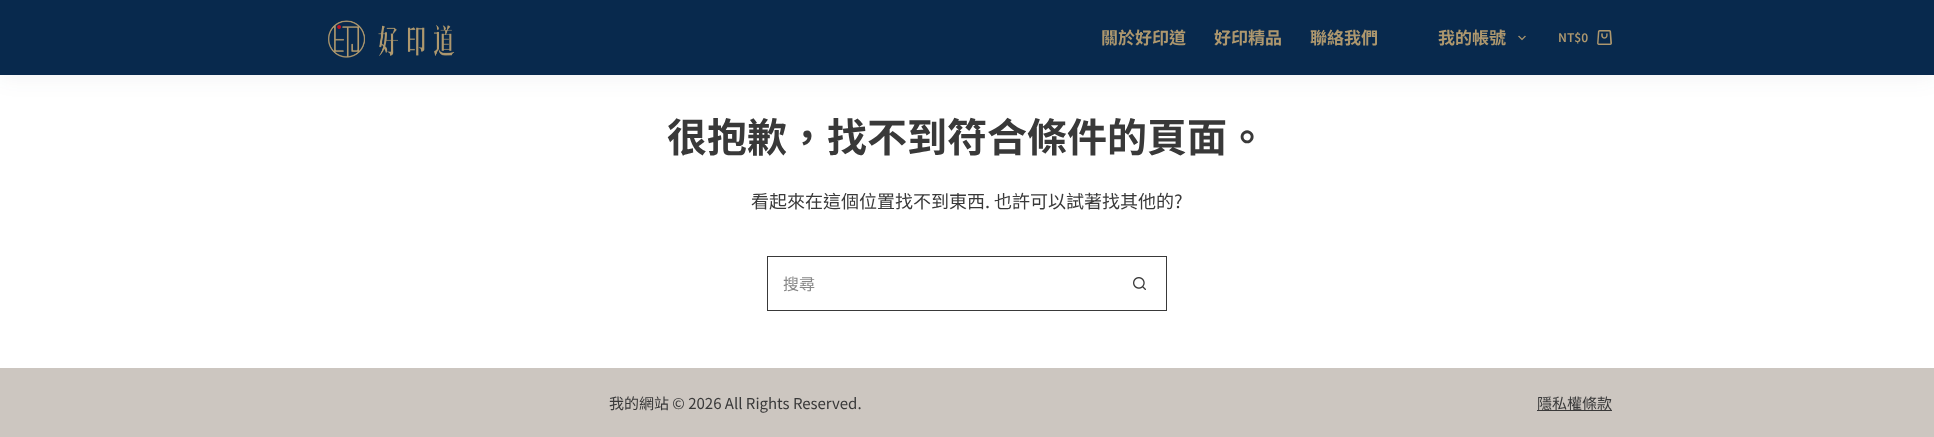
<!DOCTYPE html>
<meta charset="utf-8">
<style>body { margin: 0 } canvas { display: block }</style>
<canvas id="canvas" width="1934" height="437"></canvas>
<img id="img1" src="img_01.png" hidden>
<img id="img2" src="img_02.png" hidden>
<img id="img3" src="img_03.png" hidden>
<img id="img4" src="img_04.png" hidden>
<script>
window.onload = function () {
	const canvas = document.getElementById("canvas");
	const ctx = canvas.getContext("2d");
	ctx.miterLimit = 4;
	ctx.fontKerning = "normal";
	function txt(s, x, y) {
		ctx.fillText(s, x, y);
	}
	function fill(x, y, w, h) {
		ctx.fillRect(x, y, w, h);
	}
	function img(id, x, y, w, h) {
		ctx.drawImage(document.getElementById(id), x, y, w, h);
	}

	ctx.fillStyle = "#FFFFFF";
	fill(0, 0, 1934, 437);
	ctx.fillStyle = "rgba(44, 62, 80, 0.05)";
	ctx.filter = "blur(10px)";
	ctx.beginPath();
	ctx.rect(0, 5, 1934, 75);
	ctx.fill();
	ctx.filter = "none";
	ctx.fillStyle = "#08294D";
	fill(0, 0, 1934, 75);
	img("img1", 328, 20, 127, 38);
	img("img2", 1518, 35, 8, 6);
	img("img3", 1597, 30, 15, 15);
	ctx.fillStyle = "#393939";
	fill(767, 256, 400, 1);
	fill(767, 310, 345, 1);
	fill(767, 256, 1, 55);
	fill(1166, 256, 1, 55);
	fill(1112, 310, 55, 1);
	img("img4", 1133, 277, 13, 13);
	ctx.fillStyle = "#CCC6C0";
	fill(0, 368, 1934, 69);
	ctx.fillStyle = "#393939";
	fill(1537, 410, 75, 1);
	ctx.font = "bold 17px Noto Sans TC";
	ctx.fillStyle = "#AD976E";
	txt("關於好印道", 1101, 44);
	txt("好印精品", 1214, 44);
	txt("聯絡我們", 1310, 44);
	txt("我的帳號", 1438, 44);
	ctx.font = "600 12px Noto Sans TC";
	txt("NT$0", 1558, 42);
	ctx.font = "bold 40px Noto Sans TC";
	ctx.fillStyle = "#393939";
	txt("很抱歉，找不到符合條件的頁面。", 667, 152);
	ctx.font = "18px Noto Sans TC";
	txt("看起來在這個位置找不到東西. 也許可以試著找其他的?", 751, 208);
	ctx.font = "16px Noto Sans TC";
	ctx.fillStyle = "#888888";
	txt("搜尋", 783, 290);
	ctx.font = "15px Noto Sans TC";
	ctx.fillStyle = "#393939";
	txt("我的網站 © 2026 All Rights Reserved.", 609, 409);
	txt("隱私權條款", 1537, 409);
};
</script>
